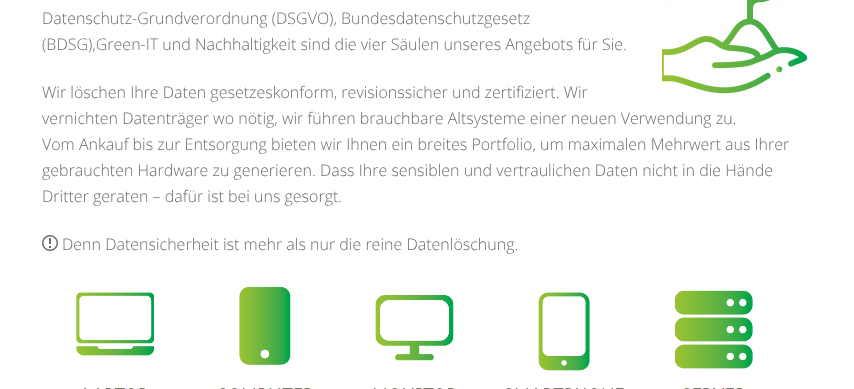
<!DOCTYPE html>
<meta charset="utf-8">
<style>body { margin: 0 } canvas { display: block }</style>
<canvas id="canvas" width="854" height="389"></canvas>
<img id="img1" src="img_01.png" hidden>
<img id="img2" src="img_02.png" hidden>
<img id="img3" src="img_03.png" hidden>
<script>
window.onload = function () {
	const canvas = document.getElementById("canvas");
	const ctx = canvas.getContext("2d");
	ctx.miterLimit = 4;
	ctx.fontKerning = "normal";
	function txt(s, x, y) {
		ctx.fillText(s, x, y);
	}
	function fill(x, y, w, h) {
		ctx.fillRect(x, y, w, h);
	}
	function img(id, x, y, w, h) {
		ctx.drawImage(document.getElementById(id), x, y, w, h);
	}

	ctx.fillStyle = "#FFFFFF";
	fill(0, 0, 854, 389);
	img("img1", 662, 0, 146, 94);
	img("img2", 42, 235, 16, 16);
	img("img3", 76, 286, 677, 103);
	ctx.font = "300 16px Open Sans";
	ctx.fillStyle = "#6D6D6D";
	txt("Datenschutz-Grundverordnung (DSGVO), Bundesdatenschutzgesetz", 42, 24);
	txt("(BDSG),Green-IT und Nachhaltigkeit sind die vier Säulen unseres Angebots für Sie.", 42, 50);
	txt("Wir löschen Ihre Daten gesetzeskonform, revisionssicher und zertifiziert. Wir", 42, 98);
	txt("vernichten Datenträger wo nötig, wir führen brauchbare Altsysteme einer neuen Verwendung zu.", 42, 124);
	txt("Vom Ankauf bis zur Entsorgung bieten wir Ihnen ein breites Portfolio, um maximalen Mehrwert aus Ihrer", 42, 150);
	txt("gebrauchten Hardware zu generieren. Dass Ihre sensiblen und vertraulichen Daten nicht in die Hände", 42, 176);
	txt("Dritter geraten – dafür ist bei uns gesorgt.", 42, 202);
	txt("Denn Datensicherheit ist mehr als nur die reine Datenlöschung.", 62, 250);
};
</script>
